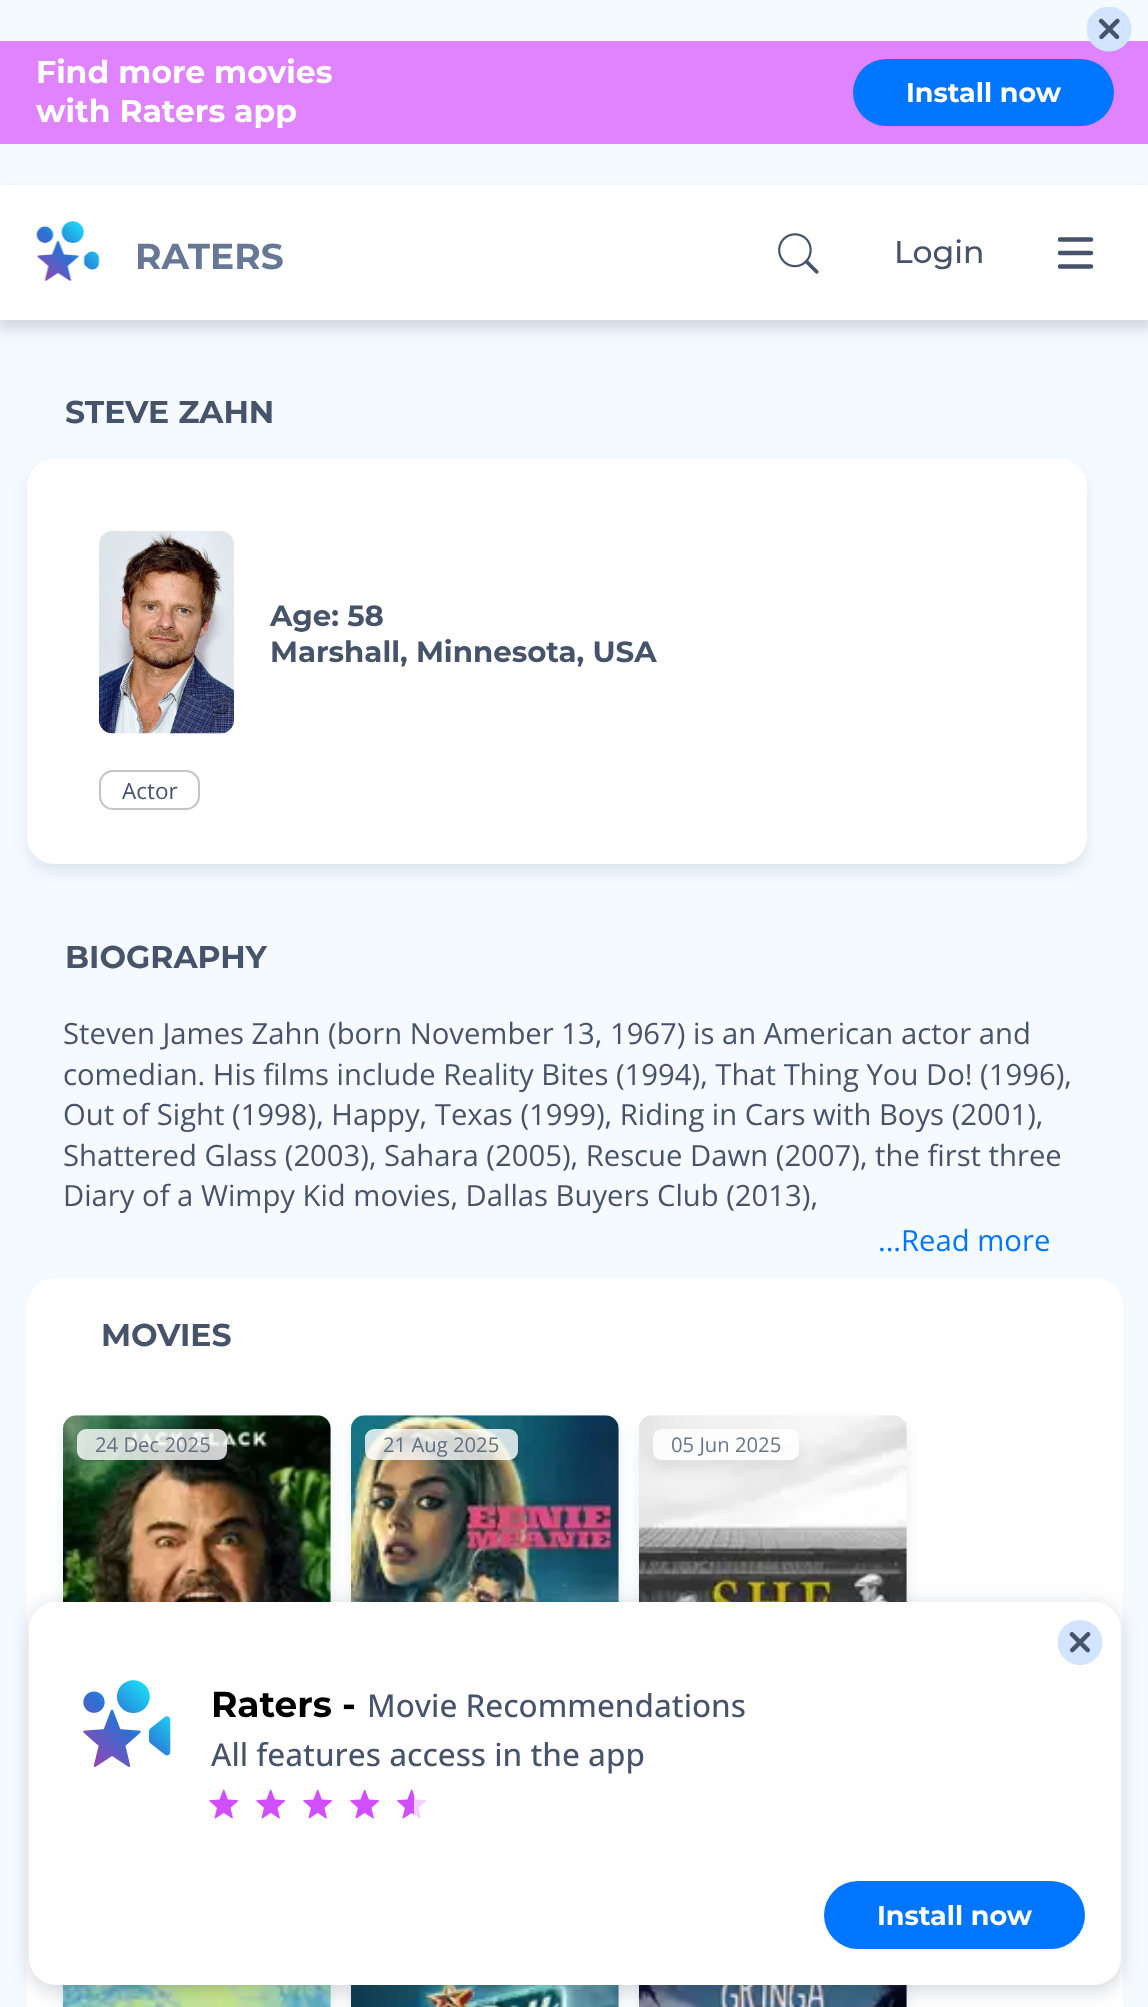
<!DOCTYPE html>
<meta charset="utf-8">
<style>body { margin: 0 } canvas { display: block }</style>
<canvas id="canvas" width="1148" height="2007"></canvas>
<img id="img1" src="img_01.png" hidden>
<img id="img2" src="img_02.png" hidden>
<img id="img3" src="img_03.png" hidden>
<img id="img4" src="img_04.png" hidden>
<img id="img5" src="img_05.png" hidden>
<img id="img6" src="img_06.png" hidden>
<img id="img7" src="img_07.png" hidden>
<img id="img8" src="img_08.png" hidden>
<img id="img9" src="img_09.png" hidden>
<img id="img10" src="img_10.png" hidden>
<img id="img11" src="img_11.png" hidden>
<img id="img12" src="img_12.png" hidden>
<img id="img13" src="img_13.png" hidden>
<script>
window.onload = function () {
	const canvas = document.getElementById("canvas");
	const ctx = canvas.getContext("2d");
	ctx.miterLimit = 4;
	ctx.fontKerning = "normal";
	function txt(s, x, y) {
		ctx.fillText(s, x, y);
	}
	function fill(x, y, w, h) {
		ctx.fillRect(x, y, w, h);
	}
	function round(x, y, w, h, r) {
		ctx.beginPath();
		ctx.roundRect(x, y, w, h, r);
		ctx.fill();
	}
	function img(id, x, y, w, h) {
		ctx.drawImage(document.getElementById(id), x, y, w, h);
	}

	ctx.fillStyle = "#F5FAFF";
	fill(0, 0, 1148, 2007);
	ctx.fillStyle = "rgba(71, 83, 106, 0.15)";
	ctx.filter = "blur(9px)";
	ctx.beginPath();
	ctx.rect(0, 9, 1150, 320);
	ctx.fill();
	ctx.filter = "none";
	ctx.fillStyle = "#FFFFFF";
	fill(0, 185, 1148, 135);
	ctx.fillStyle = "#F5FAFF";
	fill(0, 0, 1148, 185);
	ctx.fillStyle = "#DF83FF";
	fill(0, 41, 1148, 103);
	img("img1", 1087, 7, 45, 45);
	ctx.fillStyle = "#0075FF";
	round(853, 59, 261, 67, 33.5);
	ctx.save();
	ctx.beginPath();
	ctx.moveTo(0, 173);
	ctx.lineTo(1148, 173);
	ctx.lineTo(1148, 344);
	ctx.lineTo(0, 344);
	ctx.closePath();
	ctx.moveTo(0, 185);
	ctx.lineTo(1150, 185);
	ctx.lineTo(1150, 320);
	ctx.lineTo(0, 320);
	ctx.closePath();
	ctx.clip("evenodd");
	ctx.fillStyle = "#D2D9E1";
	ctx.filter = "blur(5.5px)";
	ctx.beginPath();
	ctx.rect(0, 191, 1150, 135);
	ctx.fill();
	ctx.filter = "none";
	ctx.restore();
	img("img2", 36, 221, 64, 60);
	img("img3", 778, 233, 41, 41);
	ctx.save();
	ctx.beginPath();
	ctx.rect(1058, 236, 36, 34);
	ctx.clip();
	ctx.beginPath();
	ctx.moveTo(1060, 239.5);
	ctx.lineTo(1091, 239.5);
	ctx.moveTo(1060, 253);
	ctx.lineTo(1091, 253);
	ctx.moveTo(1060, 266.5);
	ctx.lineTo(1091, 266.5);
	ctx.strokeStyle = "#47536A";
	ctx.lineWidth = 4.5;
	ctx.lineCap = "round";
	ctx.lineJoin = "round";
	ctx.stroke();
	ctx.restore();
	ctx.fillStyle = "rgba(28, 67, 104, 0.1)";
	ctx.filter = "blur(7px)";
	ctx.beginPath();
	ctx.roundRect(27, 468, 1060, 405, 27);
	ctx.fill();
	ctx.filter = "none";
	ctx.fillStyle = "#FFFFFF";
	round(27, 459, 1060, 405, 27);
	img("img4", 99, 531, 135, 203);
	ctx.beginPath();
	ctx.roundRect(100, 771, 99, 38, 13);
	ctx.strokeStyle = "#C4C4C4";
	ctx.lineWidth = 2;
	ctx.stroke();
	ctx.save();
	ctx.beginPath();
	ctx.rect(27, 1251, 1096, 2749);
	ctx.clip();
	ctx.fillStyle = "rgba(28, 67, 104, 0.1)";
	ctx.filter = "blur(7px)";
	ctx.beginPath();
	ctx.roundRect(27, 1287, 1096, 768, 27);
	ctx.fill();
	ctx.filter = "none";
	ctx.restore();
	round(27, 1278, 1096, 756, 27);
	ctx.fillStyle = "rgba(28, 67, 104, 0.1)";
	ctx.filter = "blur(7px)";
	ctx.beginPath();
	ctx.roundRect(63, 1424, 268, 401, 14);
	ctx.fill();
	ctx.filter = "none";
	img("img5", 63, 1415, 268, 187);
	ctx.fillStyle = "rgba(255, 255, 255, 0.8)";
	round(77, 1429, 150, 31, 9);
	ctx.fillStyle = "rgba(28, 67, 104, 0.1)";
	ctx.filter = "blur(7px)";
	ctx.beginPath();
	ctx.roundRect(351, 1424, 268, 401, 14);
	ctx.fill();
	ctx.filter = "none";
	img("img6", 351, 1415, 268, 187);
	ctx.save();
	ctx.beginPath();
	ctx.moveTo(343, 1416);
	ctx.lineTo(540, 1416);
	ctx.lineTo(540, 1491);
	ctx.lineTo(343, 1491);
	ctx.closePath();
	ctx.moveTo(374, 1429);
	ctx.lineTo(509, 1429);
	ctx.bezierCurveTo(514, 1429, 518, 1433, 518, 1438);
	ctx.lineTo(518, 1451);
	ctx.bezierCurveTo(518, 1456, 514, 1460, 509, 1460);
	ctx.lineTo(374, 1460);
	ctx.bezierCurveTo(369, 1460, 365, 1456, 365, 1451);
	ctx.lineTo(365, 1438);
	ctx.bezierCurveTo(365, 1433, 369, 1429, 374, 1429);
	ctx.closePath();
	ctx.clip("evenodd");
	ctx.fillStyle = "rgba(0, 0, 0, 0.08)";
	ctx.filter = "blur(7px)";
	ctx.beginPath();
	ctx.roundRect(365, 1438, 153, 31, 9);
	ctx.fill();
	ctx.filter = "none";
	ctx.restore();
	ctx.fillStyle = "rgba(255, 255, 255, 0.8)";
	round(365, 1429, 153, 31, 9);
	ctx.fillStyle = "rgba(28, 67, 104, 0.1)";
	ctx.filter = "blur(7px)";
	ctx.beginPath();
	ctx.roundRect(639, 1424, 268, 401, 14);
	ctx.fill();
	ctx.filter = "none";
	img("img7", 639, 1415, 268, 187);
	ctx.save();
	ctx.beginPath();
	ctx.moveTo(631, 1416);
	ctx.lineTo(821, 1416);
	ctx.lineTo(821, 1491);
	ctx.lineTo(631, 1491);
	ctx.closePath();
	ctx.moveTo(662, 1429);
	ctx.lineTo(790, 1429);
	ctx.bezierCurveTo(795, 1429, 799, 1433, 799, 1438);
	ctx.lineTo(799, 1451);
	ctx.bezierCurveTo(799, 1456, 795, 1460, 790, 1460);
	ctx.lineTo(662, 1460);
	ctx.bezierCurveTo(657, 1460, 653, 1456, 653, 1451);
	ctx.lineTo(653, 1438);
	ctx.bezierCurveTo(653, 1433, 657, 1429, 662, 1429);
	ctx.closePath();
	ctx.clip("evenodd");
	ctx.fillStyle = "rgba(0, 0, 0, 0.08)";
	ctx.filter = "blur(7px)";
	ctx.beginPath();
	ctx.roundRect(653, 1438, 146, 31, 9);
	ctx.fill();
	ctx.filter = "none";
	ctx.restore();
	ctx.fillStyle = "rgba(255, 255, 255, 0.8)";
	round(653, 1429, 146, 31, 9);
	ctx.fillStyle = "rgba(28, 67, 104, 0.1)";
	ctx.filter = "blur(7px)";
	ctx.beginPath();
	ctx.roundRect(63, 1942, 268, 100, 14);
	ctx.fill();
	ctx.filter = "none";
	img("img8", 63, 1985, 268, 22);
	ctx.fillStyle = "rgba(0, 0, 0, 0.08)";
	ctx.filter = "blur(7px)";
	ctx.beginPath();
	ctx.roundRect(77, 1955, 155, 32, 9);
	ctx.fill();
	ctx.filter = "none";
	ctx.fillStyle = "rgba(28, 67, 104, 0.1)";
	ctx.filter = "blur(7px)";
	ctx.beginPath();
	ctx.roundRect(351, 1942, 268, 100, 14);
	ctx.fill();
	ctx.filter = "none";
	img("img9", 351, 1985, 268, 22);
	ctx.fillStyle = "rgba(0, 0, 0, 0.08)";
	ctx.filter = "blur(7px)";
	ctx.beginPath();
	ctx.roundRect(365, 1955, 148, 32, 9);
	ctx.fill();
	ctx.filter = "none";
	ctx.fillStyle = "rgba(28, 67, 104, 0.1)";
	ctx.filter = "blur(7px)";
	ctx.beginPath();
	ctx.roundRect(639, 1942, 268, 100, 14);
	ctx.fill();
	ctx.filter = "none";
	img("img10", 639, 1985, 268, 22);
	ctx.fillStyle = "rgba(0, 0, 0, 0.08)";
	ctx.filter = "blur(7px)";
	ctx.beginPath();
	ctx.roundRect(653, 1955, 148, 32, 9);
	ctx.fill();
	ctx.filter = "none";
	ctx.fillStyle = "rgba(71, 83, 106, 0.1)";
	ctx.filter = "blur(9px)";
	ctx.beginPath();
	ctx.roundRect(29, 1600, 1092, 382, 27);
	ctx.fill();
	ctx.filter = "none";
	ctx.fillStyle = "rgba(71, 83, 106, 0.15)";
	ctx.filter = "blur(9px)";
	ctx.beginPath();
	ctx.roundRect(29, 1611, 1092, 383, 27);
	ctx.fill();
	ctx.filter = "none";
	ctx.fillStyle = "#FFFFFF";
	round(29, 1602, 1092, 383, 27);
	img("img11", 1058, 1620, 45, 45);
	img("img12", 83, 1680, 88, 87);
	img("img13", 209, 1789, 217, 30);
	ctx.fillStyle = "#0075FF";
	round(824, 1881, 261, 68, 34);
	ctx.font = "bold 31.5px Montserrat";
	ctx.fillStyle = "#FFFFFF";
	txt("Find more movies", 36, 83);
	txt("with Raters app", 36, 122);
	ctx.font = "bold 27px Montserrat";
	txt("Install now", 906, 102);
	ctx.font = "bold 36px Montserrat";
	ctx.fillStyle = "#677897";
	txt("RATERS", 135, 269);
	ctx.font = "500 31.5px Montserrat";
	ctx.fillStyle = "#47536A";
	txt("Login", 894, 263);
	ctx.font = "bold 31.5px Montserrat";
	txt("STEVE ZAHN", 65, 423);
	ctx.font = "bold 29.25px Montserrat";
	txt("Age: 58", 270, 626);
	txt("Marshall, Minnesota, USA", 270, 662);
	ctx.font = "22.5px Open Sans";
	txt("Actor", 122, 799);
	ctx.font = "bold 31.5px Montserrat";
	txt("BIOGRAPHY", 65, 968);
	ctx.font = "29.25px Open Sans";
	txt("Steven James Zahn (born November 13, 1967) is an American actor and", 63, 1044);
	txt("comedian. His films include Reality Bites (1994), That Thing You Do! (1996),", 63, 1085);
	txt("Out of Sight (1998), Happy, Texas (1999), Riding in Cars with Boys (2001),", 63, 1125);
	txt("Shattered Glass (2003), Sahara (2005), Rescue Dawn (2007), the first three", 63, 1166);
	txt("Diary of a Wimpy Kid movies, Dallas Buyers Club (2013),", 63, 1206);
	ctx.font = "29.25px 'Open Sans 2'";
	ctx.fillStyle = "#0075FF";
	txt("...Read more", 878, 1251);
	ctx.font = "bold 31.5px Montserrat";
	ctx.fillStyle = "#47536A";
	txt("MOVIES", 101, 1346);
	ctx.font = "20.25px Open Sans";
	ctx.fillStyle = "#646F80";
	txt("24 Dec 2025", 95, 1452);
	txt("21 Aug 2025", 383, 1452);
	ctx.fillStyle = "#6B7587";
	txt("05 Jun 2025", 671, 1452);
	ctx.font = "bold 36px Montserrat";
	ctx.fillStyle = "#000000";
	txt("Raters -", 211, 1717);
	ctx.font = "500 31.5px Open Sans";
	ctx.fillStyle = "#47536A";
	txt("Movie Recommendations", 367, 1717);
	txt("All features access in the app", 211, 1766);
	ctx.font = "bold 27px Montserrat";
	ctx.fillStyle = "#FFFFFF";
	txt("Install now", 877, 1925);
};
</script>
